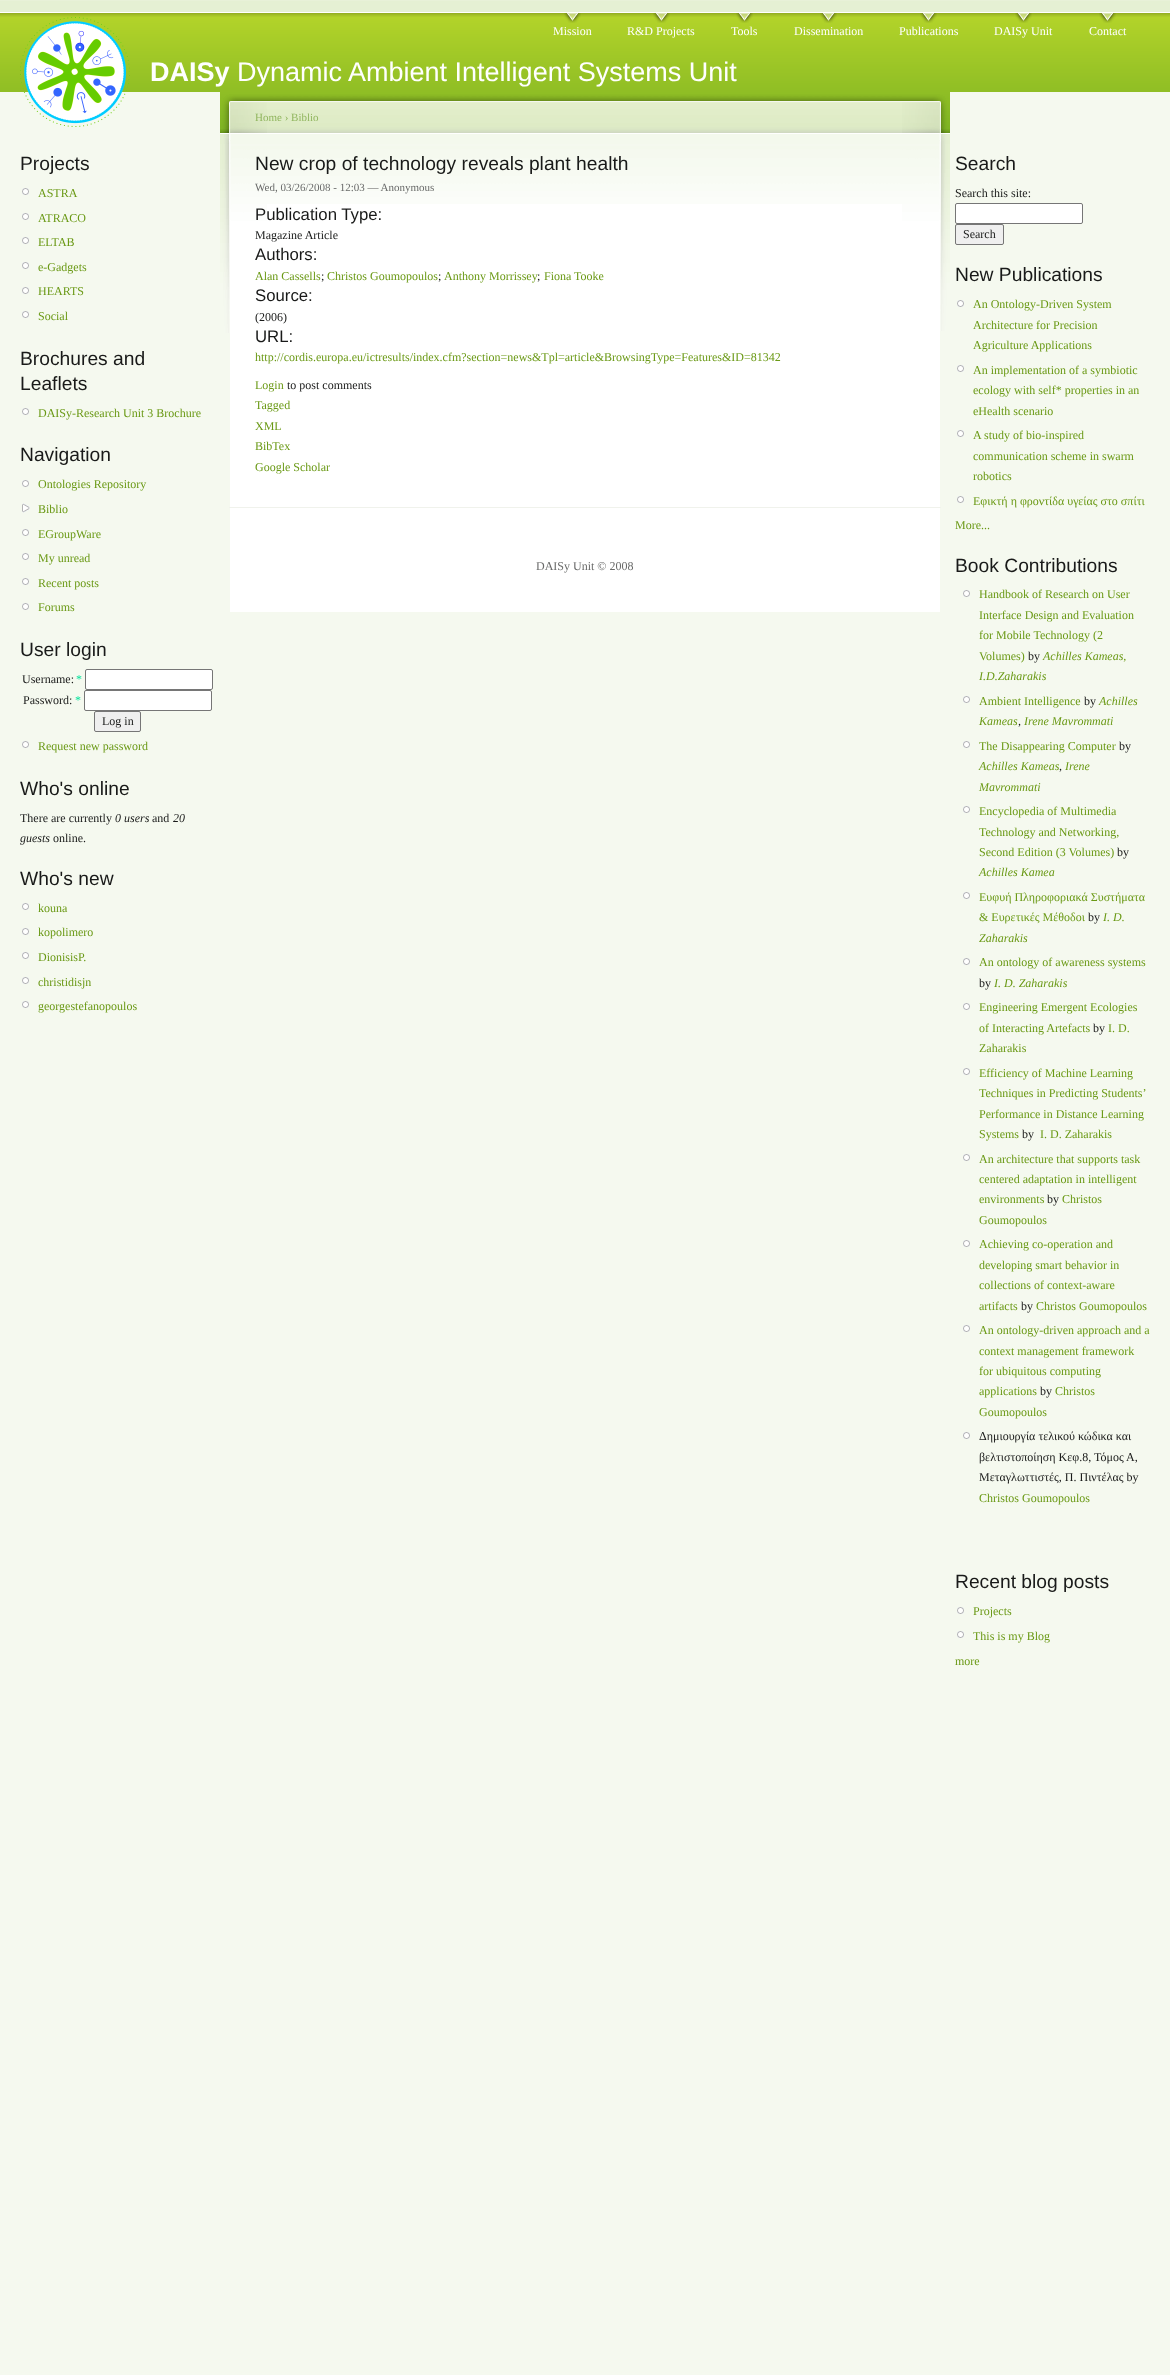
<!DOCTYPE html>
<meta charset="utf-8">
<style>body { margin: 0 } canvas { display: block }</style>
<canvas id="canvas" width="1170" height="2375"></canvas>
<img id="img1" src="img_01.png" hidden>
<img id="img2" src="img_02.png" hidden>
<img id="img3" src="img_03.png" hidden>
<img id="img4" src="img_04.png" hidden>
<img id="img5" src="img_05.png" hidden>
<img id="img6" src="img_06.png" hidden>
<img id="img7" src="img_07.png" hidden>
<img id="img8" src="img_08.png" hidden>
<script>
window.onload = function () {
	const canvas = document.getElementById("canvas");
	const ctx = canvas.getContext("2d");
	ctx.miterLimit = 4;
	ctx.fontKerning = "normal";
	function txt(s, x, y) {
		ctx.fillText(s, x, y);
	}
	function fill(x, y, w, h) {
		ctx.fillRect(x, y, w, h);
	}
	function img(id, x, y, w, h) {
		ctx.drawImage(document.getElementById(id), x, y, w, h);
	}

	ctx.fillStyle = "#F5F9EF";
	fill(0, 0, 1170, 2375);
	ctx.fillStyle = "#E8F1D8";
	fill(0, 0, 1170, 1);
	ctx.fillStyle = "#E5F0D3";
	fill(0, 1, 1170, 11);
	img("img1", 0, 12, 1170, 80);
	img("img2", 564, 13, 17, 10);
	img("img2", 653, 13, 17, 10);
	img("img2", 736, 13, 17, 10);
	img("img2", 820, 13, 17, 10);
	img("img2", 920, 13, 17, 10);
	img("img2", 1015, 13, 17, 10);
	img("img2", 1099, 13, 17, 10);
	img("img3", 20, 17, 110, 110);
	img("img4", 22, 188, 7, 7);
	img("img4", 22, 213, 7, 7);
	img("img4", 22, 237, 7, 7);
	img("img4", 22, 262, 7, 7);
	img("img4", 22, 287, 7, 7);
	img("img4", 22, 311, 7, 7);
	img("img4", 22, 408, 7, 7);
	img("img4", 22, 480, 7, 7);
	img("img5", 22, 503, 8, 10);
	img("img4", 22, 529, 7, 7);
	img("img4", 22, 553, 7, 7);
	img("img4", 22, 578, 7, 7);
	img("img4", 22, 603, 7, 7);
	ctx.fillStyle = "#FFFFFF";
	ctx.beginPath();
	ctx.roundRect(85.5, 669.5, 127, 20, 1.5);
	ctx.fill();
	ctx.strokeStyle = "#767676";
	ctx.stroke();
	ctx.beginPath();
	ctx.roundRect(84.5, 690.5, 127, 20, 1.5);
	ctx.fill();
	ctx.stroke();
	ctx.fillStyle = "#EFEFEF";
	ctx.beginPath();
	ctx.roundRect(94.5, 711.5, 46, 20, 1.5);
	ctx.fill();
	ctx.stroke();
	img("img4", 22, 741, 7, 7);
	img("img4", 22, 903, 7, 7);
	img("img4", 22, 928, 7, 7);
	img("img4", 22, 952, 7, 7);
	img("img4", 22, 977, 7, 7);
	img("img4", 22, 1001, 7, 7);
	ctx.fillStyle = "#FFFFFF";
	fill(230, 204, 710, 408);
	img("img6", 267, 92, 635, 112);
	img("img7", 902, 92, 48, 239);
	img("img8", 220, 92, 47, 241);
	ctx.fillStyle = "#F0F2EC";
	fill(229, 507, 712, 1);
	ctx.fillStyle = "#FFFFFF";
	ctx.beginPath();
	ctx.roundRect(955.5, 203.5, 127, 20, 1.5);
	ctx.fill();
	ctx.stroke();
	ctx.fillStyle = "#EFEFEF";
	ctx.beginPath();
	ctx.roundRect(955.5, 224.5, 48, 20, 1.5);
	ctx.fill();
	ctx.stroke();
	img("img4", 957, 300, 7, 7);
	img("img4", 957, 365, 7, 7);
	img("img4", 957, 430, 7, 7);
	img("img4", 957, 496, 7, 7);
	img("img4", 963, 590, 7, 7);
	img("img4", 963, 696, 7, 7);
	img("img4", 963, 741, 7, 7);
	img("img4", 963, 806, 7, 7);
	img("img4", 963, 892, 7, 7);
	img("img4", 963, 958, 7, 7);
	img("img4", 963, 1003, 7, 7);
	img("img4", 963, 1068, 7, 7);
	img("img4", 963, 1154, 7, 7);
	img("img4", 963, 1240, 7, 7);
	img("img4", 963, 1325, 7, 7);
	img("img4", 963, 1432, 7, 7);
	img("img4", 957, 1607, 7, 7);
	img("img4", 957, 1631, 7, 7);
	ctx.font = "12px Liberation Serif";
	ctx.fillStyle = "#FFFFFF";
	txt("Mission", 553, 35);
	txt("R&D Projects", 627, 35);
	txt("Tools", 731, 35);
	txt("Dissemination", 794, 35);
	txt("Publications", 899, 35);
	txt("DAISy Unit", 994, 35);
	txt("Contact", 1089, 35);
	ctx.font = "bold 27px Liberation Sans";
	txt("DAISy", 150, 81);
	ctx.font = "27px Liberation Sans";
	txt("Dynamic Ambient Intelligent Systems Unit", 237, 81);
	ctx.font = "19.25px Liberation Sans";
	ctx.fillStyle = "#191A19";
	txt("Projects", 20, 170);
	ctx.font = "12px Liberation Serif";
	ctx.fillStyle = "#6A9915";
	txt("ASTRA", 38, 197);
	txt("ATRACO", 38, 222);
	txt("ELTAB", 38, 246);
	txt("e-Gadgets", 38, 271);
	txt("HEARTS", 38, 295);
	txt("Social", 38, 320);
	ctx.font = "19.25px Liberation Sans";
	ctx.fillStyle = "#191A19";
	txt("Brochures and", 20, 365);
	txt("Leaflets", 20, 390);
	ctx.font = "12px Liberation Serif";
	ctx.fillStyle = "#6A9915";
	txt("DAISy-Research Unit 3 Brochure", 38, 417);
	ctx.font = "19.25px Liberation Sans";
	ctx.fillStyle = "#191A19";
	txt("Navigation", 20, 461);
	ctx.font = "12px Liberation Serif";
	ctx.fillStyle = "#6A9915";
	txt("Ontologies Repository", 38, 488);
	txt("Biblio", 38, 513);
	txt("EGroupWare", 38, 538);
	txt("My unread", 38, 562);
	txt("Recent posts", 38, 587);
	txt("Forums", 38, 611);
	ctx.font = "19.25px Liberation Sans";
	ctx.fillStyle = "#191A19";
	txt("User login", 20, 656);
	ctx.font = "12px Liberation Serif";
	txt("Username:", 22, 683);
	ctx.fillStyle = "#00E29A";
	txt("*", 76, 683);
	ctx.fillStyle = "#191A19";
	txt("Password:", 23, 704);
	ctx.fillStyle = "#00E29A";
	txt("*", 75, 704);
	ctx.fillStyle = "#191A19";
	txt("Log in", 102, 725);
	ctx.fillStyle = "#6A9915";
	txt("Request new password", 38, 750);
	ctx.font = "19.25px Liberation Sans";
	ctx.fillStyle = "#191A19";
	txt("Who's online", 20, 795);
	ctx.font = "12px Liberation Serif";
	txt("There are currently", 20, 822);
	ctx.font = "italic 12px Liberation Serif";
	txt("0 users", 115, 822);
	ctx.font = "12px Liberation Serif";
	txt("and", 152, 822);
	ctx.font = "italic 12px Liberation Serif";
	txt("20", 173, 822);
	txt("guests", 20, 842);
	ctx.font = "12px Liberation Serif";
	txt("online.", 53, 842);
	ctx.font = "19.25px Liberation Sans";
	txt("Who's new", 20, 885);
	ctx.font = "12px Liberation Serif";
	ctx.fillStyle = "#6A9915";
	txt("kouna", 38, 912);
	txt("kopolimero", 38, 936);
	txt("DionisisP.", 38, 961);
	txt("christidisjn", 38, 986);
	txt("georgestefanopoulos", 38, 1010);
	ctx.font = "11px Liberation Serif";
	ctx.fillStyle = "#91B65F";
	txt("Home › Biblio", 255, 121);
	ctx.font = "19.25px Liberation Sans";
	ctx.fillStyle = "#191A19";
	txt("New crop of technology reveals plant health", 255, 170);
	ctx.font = "11px Liberation Serif";
	ctx.fillStyle = "#696A69";
	txt("Wed, 03/26/2008 - 12:03 — Anonymous", 255, 191);
	ctx.font = "16.75px Liberation Sans";
	ctx.fillStyle = "#191A19";
	txt("Publication Type:", 255, 220);
	ctx.font = "12px Liberation Serif";
	txt("Magazine Article", 255, 239);
	ctx.font = "16.75px Liberation Sans";
	txt("Authors:", 255, 260);
	ctx.font = "12px Liberation Serif";
	ctx.fillStyle = "#6A9915";
	txt("Alan Cassells", 255, 280);
	ctx.fillStyle = "#191A19";
	txt(";", 321, 280);
	ctx.fillStyle = "#6A9915";
	txt("Christos Goumopoulos", 327, 280);
	ctx.fillStyle = "#191A19";
	txt(";", 438, 280);
	ctx.fillStyle = "#6A9915";
	txt("Anthony Morrissey", 444, 280);
	ctx.fillStyle = "#191A19";
	txt(";", 537, 280);
	ctx.fillStyle = "#6A9915";
	txt("Fiona Tooke", 544, 280);
	ctx.font = "16.75px Liberation Sans";
	ctx.fillStyle = "#191A19";
	txt("Source:", 255, 301);
	ctx.font = "12px Liberation Serif";
	txt("(2006)", 255, 321);
	ctx.font = "16.75px Liberation Sans";
	txt("URL:", 255, 342);
	ctx.font = "12px Liberation Serif";
	ctx.fillStyle = "#6A9915";
	txt("http://cordis.europa.eu/ictresults/index.cfm?section=news&Tpl=article&BrowsingType=Features&ID=81342", 255, 361);
	txt("Login", 255, 389);
	ctx.fillStyle = "#191A19";
	txt("to post comments", 287, 389);
	ctx.fillStyle = "#6A9915";
	txt("Tagged", 255, 409);
	txt("XML", 255, 430);
	txt("BibTex", 255, 450);
	txt("Google Scholar", 255, 471);
	ctx.fillStyle = "#696A69";
	txt("DAISy Unit © 2008", 536, 570);
	ctx.font = "19.25px Liberation Sans";
	ctx.fillStyle = "#191A19";
	txt("Search", 955, 170);
	ctx.font = "12px Liberation Serif";
	txt("Search this site:", 955, 197);
	txt("Search", 963, 238);
	ctx.font = "19.25px Liberation Sans";
	txt("New Publications", 955, 281);
	ctx.font = "12px Liberation Serif";
	ctx.fillStyle = "#6A9915";
	txt("An Ontology-Driven System", 973, 308);
	txt("Architecture for Precision", 973, 329);
	txt("Agriculture Applications", 973, 349);
	txt("An implementation of a symbiotic", 973, 374);
	txt("ecology with self* properties in an", 973, 394);
	txt("eHealth scenario", 973, 415);
	txt("A study of bio-inspired", 973, 439);
	txt("communication scheme in swarm", 973, 460);
	txt("robotics", 973, 480);
	txt("Εφικτή η φροντίδα υγείας στο σπίτι", 973, 505);
	txt("More...", 955, 529);
	ctx.font = "19.25px Liberation Sans";
	ctx.fillStyle = "#191A19";
	txt("Book Contributions", 955, 572);
	ctx.font = "12px Liberation Serif";
	ctx.fillStyle = "#6A9915";
	txt("Handbook of Research on User", 979, 598);
	txt("Interface Design and Evaluation", 979, 619);
	txt("for Mobile Technology (2", 979, 639);
	txt("Volumes)", 979, 660);
	ctx.fillStyle = "#191A19";
	txt("by", 1028, 660);
	ctx.font = "italic 12px Liberation Serif";
	ctx.fillStyle = "#6A9915";
	txt("Achilles Kameas,", 1043, 660);
	txt("I.D.Zaharakis", 979, 680);
	ctx.font = "12px Liberation Serif";
	txt("Ambient Intelligence", 979, 705);
	ctx.fillStyle = "#191A19";
	txt("by", 1084, 705);
	ctx.font = "italic 12px Liberation Serif";
	ctx.fillStyle = "#6A9915";
	txt("Achilles", 1099, 705);
	txt("Kameas", 979, 725);
	ctx.fillStyle = "#191A19";
	txt(",", 1018, 725);
	ctx.fillStyle = "#6A9915";
	txt("Irene Mavrommati", 1024, 725);
	ctx.font = "12px Liberation Serif";
	txt("The Disappearing Computer", 979, 750);
	ctx.fillStyle = "#191A19";
	txt("by", 1119, 750);
	ctx.font = "italic 12px Liberation Serif";
	ctx.fillStyle = "#6A9915";
	txt("Achilles Kameas", 979, 770);
	ctx.fillStyle = "#191A19";
	txt(",", 1059, 770);
	ctx.fillStyle = "#6A9915";
	txt("Irene", 1065, 770);
	txt("Mavrommati", 979, 791);
	ctx.font = "12px Liberation Serif";
	txt("Encyclopedia of Multimedia", 979, 815);
	txt("Technology and Networking,", 979, 836);
	txt("Second Edition (3 Volumes)", 979, 856);
	ctx.fillStyle = "#191A19";
	txt("by", 1117, 856);
	ctx.font = "italic 12px Liberation Serif";
	ctx.fillStyle = "#6A9915";
	txt("Achilles Kamea", 979, 876);
	ctx.font = "12px Liberation Serif";
	txt("Ευφυή Πληροφοριακά Συστήματα", 979, 901);
	txt("& Ευρετικές Μέθοδοι", 979, 921);
	ctx.fillStyle = "#191A19";
	txt("by", 1088, 921);
	ctx.font = "italic 12px Liberation Serif";
	ctx.fillStyle = "#6A9915";
	txt("I. D.", 1103, 921);
	txt("Zaharakis", 979, 942);
	ctx.font = "12px Liberation Serif";
	txt("An ontology of awareness systems", 979, 966);
	ctx.fillStyle = "#191A19";
	txt("by", 979, 987);
	ctx.font = "italic 12px Liberation Serif";
	ctx.fillStyle = "#6A9915";
	txt("I. D. Zaharakis", 994, 987);
	ctx.font = "12px Liberation Serif";
	txt("Engineering Emergent Ecologies", 979, 1011);
	txt("of Interacting Artefacts", 979, 1032);
	ctx.fillStyle = "#191A19";
	txt("by", 1093, 1032);
	ctx.fillStyle = "#6A9915";
	txt("I. D.", 1108, 1032);
	txt("Zaharakis", 979, 1052);
	txt("Efficiency of Machine Learning", 979, 1077);
	txt("Techniques in Predicting Students’", 979, 1097);
	txt("Performance in Distance Learning", 979, 1118);
	txt("Systems", 979, 1138);
	ctx.fillStyle = "#191A19";
	txt("by", 1022, 1138);
	ctx.fillStyle = "#6A9915";
	txt("I. D. Zaharakis", 1040, 1138);
	txt("An architecture that supports task", 979, 1163);
	txt("centered adaptation in intelligent", 979, 1183);
	txt("environments", 979, 1203);
	ctx.fillStyle = "#191A19";
	txt("by", 1047, 1203);
	ctx.fillStyle = "#6A9915";
	txt("Christos", 1062, 1203);
	txt("Goumopoulos", 979, 1224);
	txt("Achieving co-operation and", 979, 1248);
	txt("developing smart behavior in", 979, 1269);
	txt("collections of context-aware", 979, 1289);
	txt("artifacts", 979, 1310);
	ctx.fillStyle = "#191A19";
	txt("by", 1021, 1310);
	ctx.fillStyle = "#6A9915";
	txt("Christos Goumopoulos", 1036, 1310);
	txt("Αn ontology-driven approach and a", 979, 1334);
	txt("context management framework", 979, 1355);
	txt("for ubiquitous computing", 979, 1375);
	txt("applications", 979, 1395);
	ctx.fillStyle = "#191A19";
	txt("by", 1040, 1395);
	ctx.fillStyle = "#6A9915";
	txt("Christos", 1055, 1395);
	txt("Goumopoulos", 979, 1416);
	ctx.fillStyle = "#191A19";
	txt("Δημιουργία τελικού κώδικα και", 979, 1440);
	txt("βελτιστοποίηση Κεφ.8, Τόμος Α,", 979, 1461);
	txt("Μεταγλωττιστές, Π. Πιντέλας by", 979, 1481);
	ctx.fillStyle = "#6A9915";
	txt("Christos Goumopoulos", 979, 1502);
	ctx.font = "19.25px Liberation Sans";
	ctx.fillStyle = "#191A19";
	txt("Recent blog posts", 955, 1588);
	ctx.font = "12px Liberation Serif";
	ctx.fillStyle = "#6A9915";
	txt("Projects", 973, 1615);
	txt("This is my Blog", 973, 1640);
	txt("more", 955, 1665);
};
</script>
